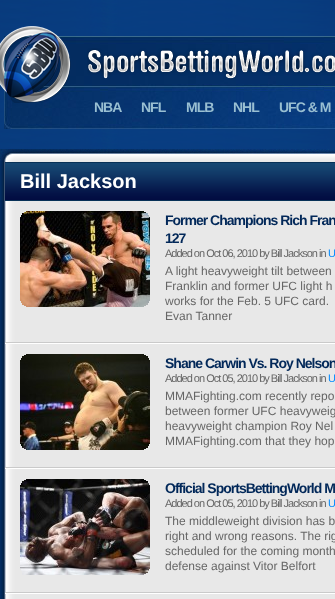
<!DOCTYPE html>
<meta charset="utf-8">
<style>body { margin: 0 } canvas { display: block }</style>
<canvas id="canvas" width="335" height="599"></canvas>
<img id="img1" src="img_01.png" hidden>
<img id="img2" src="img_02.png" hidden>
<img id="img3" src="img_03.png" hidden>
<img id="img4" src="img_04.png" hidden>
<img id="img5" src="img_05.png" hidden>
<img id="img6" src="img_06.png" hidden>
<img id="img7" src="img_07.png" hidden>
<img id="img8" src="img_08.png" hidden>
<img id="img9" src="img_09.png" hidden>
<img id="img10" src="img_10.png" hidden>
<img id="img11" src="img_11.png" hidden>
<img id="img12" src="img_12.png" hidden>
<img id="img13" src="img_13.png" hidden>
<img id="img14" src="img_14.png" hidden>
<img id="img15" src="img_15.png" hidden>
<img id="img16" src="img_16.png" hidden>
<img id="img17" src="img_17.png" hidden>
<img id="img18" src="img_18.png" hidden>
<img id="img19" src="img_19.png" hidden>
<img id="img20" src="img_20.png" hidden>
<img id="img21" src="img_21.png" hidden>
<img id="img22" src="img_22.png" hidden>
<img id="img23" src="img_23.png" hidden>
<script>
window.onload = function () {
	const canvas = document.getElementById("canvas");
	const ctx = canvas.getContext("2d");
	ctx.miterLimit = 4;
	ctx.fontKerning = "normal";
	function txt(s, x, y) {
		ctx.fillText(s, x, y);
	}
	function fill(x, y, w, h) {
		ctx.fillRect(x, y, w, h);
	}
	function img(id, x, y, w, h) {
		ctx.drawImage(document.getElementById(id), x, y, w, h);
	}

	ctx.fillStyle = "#FFFFFF";
	fill(0, 0, 335, 599);
	img("img1", 0, 0, 335, 149);
	img("img2", 4, 36, 331, 93);
	img("img3", 0, 26, 71, 77);
	img("img4", 87, 48, 248, 32);
	img("img5", 0, 149, 335, 13);
	img("img6", 0, 162, 335, 437);
	img("img7", 5, 162, 330, 39);
	img("img8", 5, 342, 330, 2);
	img("img9", 20, 211, 130, 96);
	img("img10", 20, 211, 6, 6);
	img("img11", 144, 211, 6, 6);
	img("img12", 20, 301, 6, 6);
	img("img13", 144, 301, 6, 6);
	img("img8", 5, 467, 330, 2);
	img("img14", 20, 354, 130, 96);
	img("img15", 20, 354, 6, 6);
	img("img16", 144, 354, 6, 6);
	img("img17", 20, 444, 6, 6);
	img("img18", 144, 444, 6, 6);
	img("img8", 5, 592, 330, 2);
	img("img19", 20, 479, 130, 96);
	img("img20", 20, 479, 6, 6);
	img("img21", 144, 479, 6, 6);
	img("img22", 20, 569, 2, 6);
	img("img23", 144, 569, 6, 6);
	ctx.letterSpacing = "-1px";
	ctx.font = "bold 14px Liberation Sans";
	ctx.fillStyle = "#99BFD2";
	txt("NBA", 94, 112);
	txt("NFL", 141, 112);
	txt("MLB", 186, 112);
	txt("NHL", 233, 112);
	txt("UFC & M", 279, 112);
	ctx.letterSpacing = "0px";
	ctx.font = "bold 20px Liberation Sans";
	ctx.fillStyle = "#FFFFFF";
	txt("Bill Jackson", 20, 188);
	ctx.letterSpacing = "-1px";
	ctx.font = "bold 14px Liberation Sans";
	ctx.fillStyle = "#022859";
	txt("Former Champions Rich Fran", 165, 225);
	txt("127", 165, 243);
	ctx.font = "11px Liberation Sans";
	ctx.fillStyle = "#666666";
	txt("Added on Oct 06, 2010 by Bill Jackson in", 165, 257);
	ctx.fillStyle = "#008AFF";
	txt("U", 328, 257);
	ctx.letterSpacing = "0px";
	ctx.font = "12px Liberation Sans";
	ctx.fillStyle = "#666666";
	txt("A light heavyweight tilt between", 165, 275);
	txt("Franklin and former UFC light h", 165, 290);
	txt("works for the Feb. 5 UFC card.", 165, 305);
	txt("Evan Tanner", 165, 320);
	ctx.letterSpacing = "-1px";
	ctx.font = "bold 14px Liberation Sans";
	ctx.fillStyle = "#022859";
	txt("Shane Carwin Vs. Roy Nelson", 165, 368);
	ctx.font = "11px Liberation Sans";
	ctx.fillStyle = "#666666";
	txt("Added on Oct 05, 2010 by Bill Jackson in", 165, 382);
	ctx.fillStyle = "#008AFF";
	txt("U", 328, 382);
	ctx.letterSpacing = "0px";
	ctx.font = "12px Liberation Sans";
	ctx.fillStyle = "#666666";
	txt("MMAFighting.com recently repo", 165, 400);
	txt("between former UFC heavyweig", 165, 415);
	txt("heavyweight champion Roy Nel", 165, 430);
	txt("MMAFighting.com that they hop", 165, 445);
	ctx.letterSpacing = "-1px";
	ctx.font = "bold 14px Liberation Sans";
	ctx.fillStyle = "#022859";
	txt("Official SportsBettingWorld M", 165, 493);
	ctx.font = "11px Liberation Sans";
	ctx.fillStyle = "#666666";
	txt("Added on Oct 05, 2010 by Bill Jackson in", 165, 507);
	ctx.fillStyle = "#008AFF";
	txt("U", 328, 507);
	ctx.letterSpacing = "0px";
	ctx.font = "12px Liberation Sans";
	ctx.fillStyle = "#666666";
	txt("The middleweight division has b", 165, 525);
	txt("right and wrong reasons. The rig", 165, 540);
	txt("scheduled for the coming month", 165, 555);
	txt("defense against Vitor Belfort", 165, 570);
};
</script>
